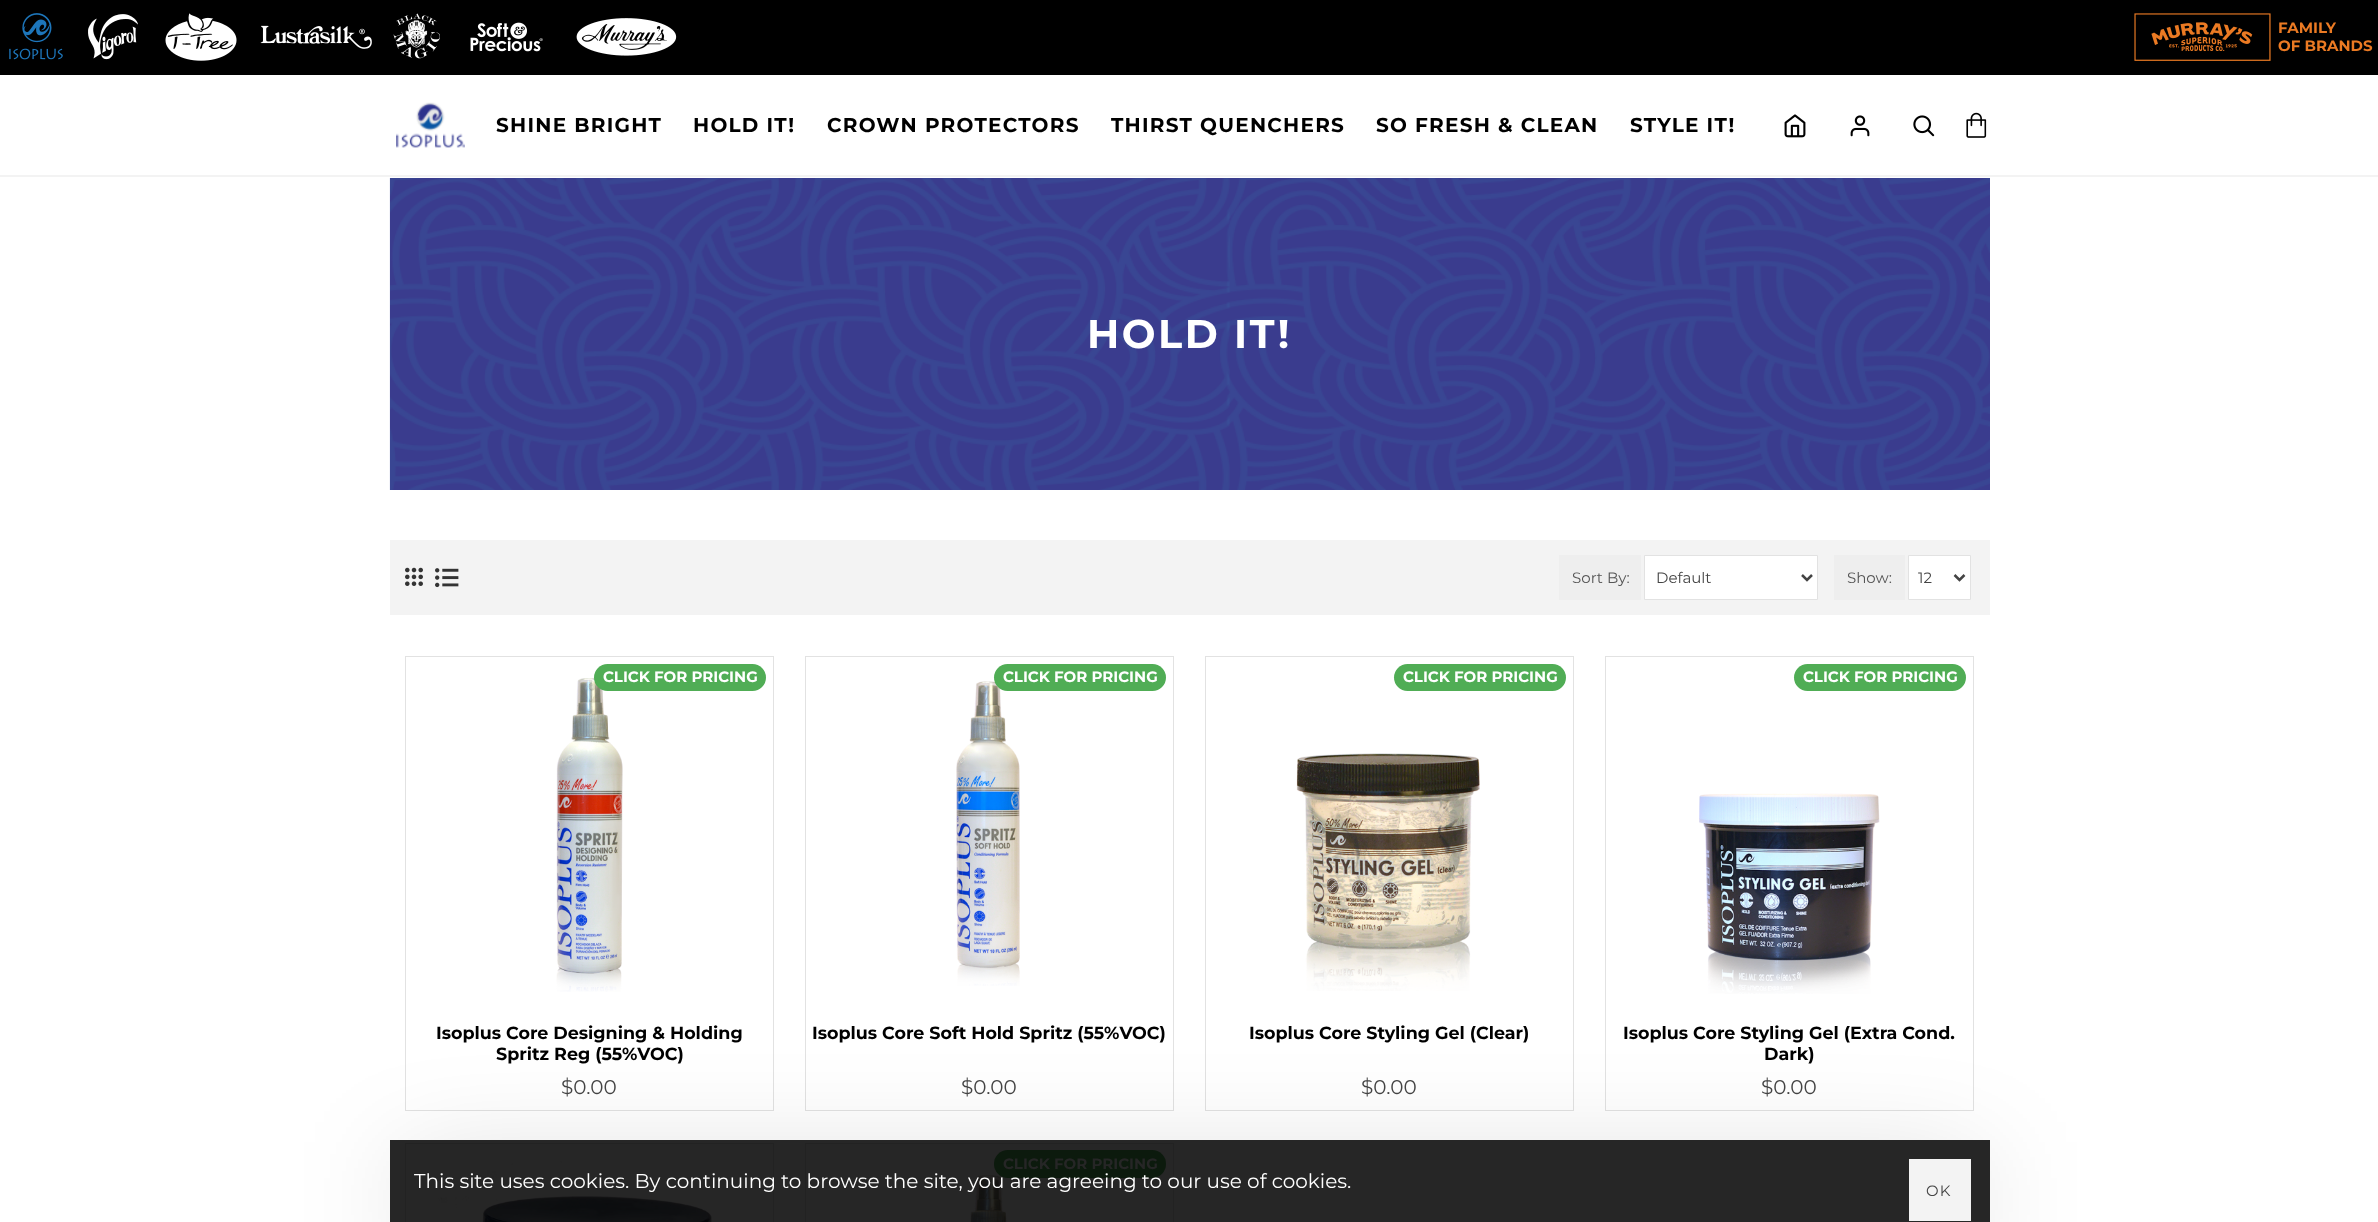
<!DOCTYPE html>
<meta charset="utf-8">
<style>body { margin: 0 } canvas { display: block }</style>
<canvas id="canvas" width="2378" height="1222"></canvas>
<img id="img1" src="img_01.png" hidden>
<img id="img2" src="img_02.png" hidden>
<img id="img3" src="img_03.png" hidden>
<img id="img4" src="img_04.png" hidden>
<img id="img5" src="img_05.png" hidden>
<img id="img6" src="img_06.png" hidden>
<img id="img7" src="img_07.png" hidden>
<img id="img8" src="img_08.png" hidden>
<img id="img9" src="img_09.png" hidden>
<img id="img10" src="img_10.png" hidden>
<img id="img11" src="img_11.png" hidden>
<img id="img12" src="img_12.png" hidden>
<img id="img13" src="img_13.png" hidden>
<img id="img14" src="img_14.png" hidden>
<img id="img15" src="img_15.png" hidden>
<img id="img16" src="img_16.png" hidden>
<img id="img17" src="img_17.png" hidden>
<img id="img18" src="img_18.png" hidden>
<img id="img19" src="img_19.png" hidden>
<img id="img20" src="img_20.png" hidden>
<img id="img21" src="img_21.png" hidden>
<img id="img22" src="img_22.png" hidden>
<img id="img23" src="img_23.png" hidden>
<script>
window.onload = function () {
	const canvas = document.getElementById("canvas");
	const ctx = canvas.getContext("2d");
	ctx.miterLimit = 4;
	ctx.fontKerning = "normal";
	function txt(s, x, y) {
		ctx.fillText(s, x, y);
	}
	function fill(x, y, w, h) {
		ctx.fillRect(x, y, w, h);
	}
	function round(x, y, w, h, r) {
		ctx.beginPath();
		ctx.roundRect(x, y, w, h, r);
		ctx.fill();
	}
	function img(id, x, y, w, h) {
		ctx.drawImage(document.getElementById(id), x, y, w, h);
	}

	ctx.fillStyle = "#FFFFFF";
	fill(0, 0, 2378, 1222);
	ctx.fillStyle = "#262626";
	fill(390, 1140, 1600, 82);
	ctx.fillStyle = "#F3F3F3";
	fill(0, 175, 2378, 2);
	ctx.fillStyle = "#000000";
	fill(0, 0, 2378, 75);
	img("img1", 9, 13, 54, 47);
	img("img2", 88, 14, 50, 46);
	img("img3", 165, 13, 72, 48);
	img("img4", 260, 25, 112, 24);
	img("img5", 393, 13, 47, 46);
	img("img6", 470, 22, 73, 30);
	img("img7", 576, 18, 101, 38);
	img("img8", 2134, 13, 137, 48);
	img("img9", 396, 102, 69, 46);
	img("img10", 1784, 114, 22, 24);
	img("img11", 1850, 115, 20, 22);
	img("img12", 1913, 115, 22, 22);
	img("img13", 1966, 112, 21, 26);
	img("img14", 389, 178, 1601, 312);
	img("img15", 390, 178, 638, 312);
	ctx.fillStyle = "#F3F3F3";
	fill(390, 540, 1600, 75);
	img("img16", 405, 567, 18, 19);
	img("img17", 435, 568, 24, 20);
	ctx.fillStyle = "#EEEEEE";
	fill(1559, 555, 82, 45);
	ctx.fillStyle = "#FFFFFF";
	ctx.beginPath();
	ctx.rect(1644.5, 555.5, 173, 44);
	ctx.fill();
	ctx.strokeStyle = "#E2E2E2";
	ctx.stroke();
	ctx.beginPath();
	ctx.moveTo(1802, 575);
	ctx.lineTo(1807, 580);
	ctx.lineTo(1812, 575);
	ctx.strokeStyle = "#444444";
	ctx.lineWidth = 2.5;
	ctx.stroke();
	ctx.fillStyle = "#EEEEEE";
	fill(1834, 555, 71, 45);
	ctx.fillStyle = "#FFFFFF";
	ctx.beginPath();
	ctx.rect(1908.5, 555.5, 62, 44);
	ctx.fill();
	ctx.strokeStyle = "#E2E2E2";
	ctx.lineWidth = 1;
	ctx.stroke();
	ctx.beginPath();
	ctx.moveTo(1954.5, 575);
	ctx.lineTo(1959.5, 580);
	ctx.lineTo(1964.5, 575);
	ctx.strokeStyle = "#444444";
	ctx.lineWidth = 2.5;
	ctx.stroke();
	ctx.strokeStyle = "#E2E2E2";
	ctx.lineWidth = 1;
	ctx.strokeRect(405.5, 656.5, 368, 454);
	img("img18", 556, 678, 67, 314);
	ctx.fillStyle = "#50AD55";
	round(594, 664, 172, 27, 13.5);
	ctx.strokeRect(805.5, 656.5, 368, 454);
	img("img19", 956, 681, 64, 305);
	round(994, 664, 172, 27, 13.5);
	ctx.strokeRect(1205.5, 656.5, 368, 454);
	round(1394, 664, 172, 27, 13.5);
	img("img20", 1296, 753, 184, 238);
	ctx.strokeRect(1605.5, 656.5, 368, 454);
	round(1794, 664, 172, 27, 13.5);
	img("img21", 1699, 793, 181, 201);
	ctx.strokeStyle = "#222222";
	ctx.strokeRect(405.5, 1143.5, 368, 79);
	img("img22", 438, 1161, 274, 61);
	ctx.strokeRect(805.5, 1143.5, 368, 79);
	img("img23", 970, 1175, 37, 47);
	ctx.fillStyle = "#0C1A0D";
	round(994, 1150, 172, 28, 14);
	ctx.save();
	ctx.beginPath();
	ctx.moveTo(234, 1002);
	ctx.lineTo(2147, 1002);
	ctx.lineTo(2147, 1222);
	ctx.lineTo(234, 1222);
	ctx.closePath();
	ctx.moveTo(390, 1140);
	ctx.lineTo(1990, 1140);
	ctx.lineTo(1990, 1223);
	ctx.lineTo(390, 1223);
	ctx.closePath();
	ctx.clip("evenodd");
	ctx.fillStyle = "rgba(0, 0, 0, 0.2)";
	ctx.filter = "blur(56px)";
	ctx.beginPath();
	ctx.rect(403, 1171, 1575, 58);
	ctx.fill();
	ctx.filter = "none";
	ctx.restore();
	ctx.fillStyle = "#F3F3F3";
	fill(1909, 1159, 62, 62);
	ctx.font = "100 15px Montserrat";
	ctx.fillStyle = "#EB7A23";
	txt("FAMILY", 2278, 33);
	txt("OF BRANDS", 2278, 51);
	ctx.letterSpacing = "1.25px";
	ctx.font = "100 20px Montserrat";
	ctx.fillStyle = "#000000";
	txt("SHINE BRIGHT", 496, 132);
	txt("HOLD IT!", 693, 132);
	txt("CROWN PROTECTORS", 827, 132);
	txt("THIRST QUENCHERS", 1111, 132);
	txt("SO FRESH & CLEAN", 1376, 132);
	txt("STYLE IT!", 1630, 132);
	ctx.letterSpacing = "2.5px";
	ctx.font = "100 40px Montserrat";
	ctx.fillStyle = "#FFFFFF";
	txt("HOLD IT!", 1087, 348);
	ctx.letterSpacing = "0px";
	ctx.font = "100 15px 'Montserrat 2'";
	ctx.fillStyle = "#555555";
	txt("Sort By:", 1572, 583);
	ctx.fillStyle = "#444444";
	txt("Default", 1656, 583);
	ctx.fillStyle = "#555555";
	txt("Show:", 1847, 583);
	ctx.fillStyle = "#444444";
	txt("12", 1918, 583);
	ctx.font = "100 15px Montserrat";
	ctx.fillStyle = "#FFFFFF";
	txt("CLICK FOR PRICING", 603, 682);
	ctx.font = "100 17.5px Montserrat";
	ctx.fillStyle = "#000000";
	txt("Isoplus Core Designing & Holding", 436, 1039);
	txt("Spritz Reg (55%VOC)", 496, 1060);
	ctx.font = "100 20px 'Montserrat 2'";
	ctx.fillStyle = "#444444";
	txt("$0.00", 561, 1094);
	ctx.font = "100 15px Montserrat";
	ctx.fillStyle = "#FFFFFF";
	txt("CLICK FOR PRICING", 1003, 682);
	ctx.font = "100 17.5px Montserrat";
	ctx.fillStyle = "#000000";
	txt("Isoplus Core Soft Hold Spritz (55%VOC)", 812, 1039);
	ctx.font = "100 20px 'Montserrat 2'";
	ctx.fillStyle = "#444444";
	txt("$0.00", 961, 1094);
	ctx.font = "100 15px Montserrat";
	ctx.fillStyle = "#FFFFFF";
	txt("CLICK FOR PRICING", 1403, 682);
	ctx.font = "100 17.5px Montserrat";
	ctx.fillStyle = "#000000";
	txt("Isoplus Core Styling Gel (Clear)", 1249, 1039);
	ctx.font = "100 20px 'Montserrat 2'";
	ctx.fillStyle = "#444444";
	txt("$0.00", 1361, 1094);
	ctx.font = "100 15px Montserrat";
	ctx.fillStyle = "#FFFFFF";
	txt("CLICK FOR PRICING", 1803, 682);
	ctx.font = "100 17.5px Montserrat";
	ctx.fillStyle = "#000000";
	txt("Isoplus Core Styling Gel (Extra Cond.", 1623, 1039);
	txt("Dark)", 1764, 1060);
	ctx.font = "100 20px 'Montserrat 2'";
	ctx.fillStyle = "#444444";
	txt("$0.00", 1761, 1094);
	ctx.font = "100 15px Montserrat";
	ctx.fillStyle = "#262626";
	txt("CLICK FOR PRICING", 1003, 1169);
	ctx.font = "100 20px 'Montserrat 2'";
	ctx.fillStyle = "#FFFFFF";
	txt("This site uses cookies. By continuing to browse the site, you are agreeing to our use of cookies.", 414, 1188);
	ctx.letterSpacing = "1.25px";
	ctx.font = "100 15px 'Montserrat 2'";
	ctx.fillStyle = "#444444";
	txt("OK", 1926, 1196);
};
</script>
